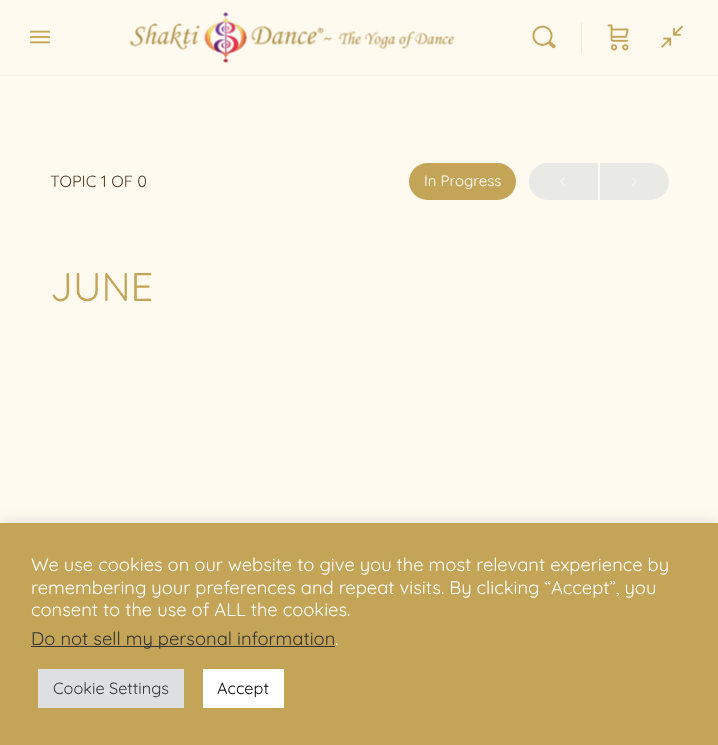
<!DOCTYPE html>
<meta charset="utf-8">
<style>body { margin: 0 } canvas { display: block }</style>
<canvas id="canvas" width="718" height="745"></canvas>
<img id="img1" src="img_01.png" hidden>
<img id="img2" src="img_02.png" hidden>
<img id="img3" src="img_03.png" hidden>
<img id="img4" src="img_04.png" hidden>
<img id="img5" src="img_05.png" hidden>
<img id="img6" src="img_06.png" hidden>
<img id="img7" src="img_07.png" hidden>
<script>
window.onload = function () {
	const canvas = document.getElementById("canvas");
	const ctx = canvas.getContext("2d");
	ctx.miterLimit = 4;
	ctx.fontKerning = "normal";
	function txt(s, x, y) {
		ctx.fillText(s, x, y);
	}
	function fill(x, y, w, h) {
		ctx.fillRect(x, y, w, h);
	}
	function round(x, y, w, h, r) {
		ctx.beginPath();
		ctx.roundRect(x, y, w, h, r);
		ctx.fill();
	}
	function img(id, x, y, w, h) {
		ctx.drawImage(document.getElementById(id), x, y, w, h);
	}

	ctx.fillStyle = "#FFFAF0";
	fill(0, 0, 718, 745);
	ctx.fillStyle = "#F6F2EA";
	ctx.beginPath();
	ctx.moveTo(0, 75);
	ctx.lineTo(0, 76);
	ctx.lineTo(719, 76);
	ctx.lineTo(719, 1);
	ctx.lineTo(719, 75);
	ctx.closePath();
	ctx.fill();
	img("img1", 30, 30, 20, 14);
	img("img2", 129, 12, 326, 51);
	img("img3", 532, 25, 24, 24);
	ctx.fillStyle = "#F3E9D1";
	fill(581, 23, 1, 30);
	img("img4", 607, 24, 22, 27);
	img("img5", 661, 25, 22, 23);
	ctx.fillStyle = "#C4A457";
	round(409, 163, 107, 37, 18.5);
	ctx.fillStyle = "#E9E9E6";
	ctx.beginPath();
	ctx.roundRect(529, 163, 69, 37, [18.5, 0, 0, 18.5]);
	ctx.fill();
	img("img6", 560, 177, 5, 9);
	ctx.beginPath();
	ctx.roundRect(600, 163, 69, 37, [0, 18.5, 18.5, 0]);
	ctx.fill();
	img("img7", 631, 177, 6, 9);
	ctx.fillStyle = "rgba(172, 171, 171, 0.3)";
	ctx.filter = "blur(6px)";
	ctx.beginPath();
	ctx.rect(0, 521, 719, 223);
	ctx.fill();
	ctx.filter = "none";
	ctx.fillStyle = "#C4A457";
	fill(0, 523, 718, 222);
	ctx.fillStyle = "#333333";
	fill(31, 646, 304, 1);
	ctx.fillStyle = "#DEDFE0";
	fill(38, 669, 146, 39);
	ctx.fillStyle = "#FFFFFF";
	fill(203, 669, 81, 39);
	ctx.font = "300 16.25px Quicksand";
	ctx.fillStyle = "#4F3A26";
	txt("TOPIC 1 OF 0", 50, 187);
	ctx.font = "300 15px Quicksand";
	ctx.fillStyle = "#FFFFFF";
	txt("In Progress", 424, 186);
	ctx.font = "300 40px Quicksand";
	ctx.fillStyle = "#C4A457";
	txt("JUNE", 50, 301);
	ctx.font = "300 18.35px Quicksand";
	ctx.fillStyle = "#FFFFFF";
	txt("We use cookies on our website to give you the most relevant experience by", 31, 571);
	txt("remembering your preferences and repeat visits. By clicking “Accept”, you", 31, 594);
	txt("consent to the use of ALL the cookies.", 31, 616);
	ctx.fillStyle = "#333333";
	txt("Do not sell my personal information", 31, 645);
	ctx.fillStyle = "#FFFFFF";
	txt(".", 335, 645);
	ctx.font = "300 16.25px Quicksand";
	ctx.fillStyle = "#333333";
	txt("Cookie Settings", 53, 694);
	ctx.fillStyle = "#000000";
	txt("Accept", 217, 694);
};
</script>
